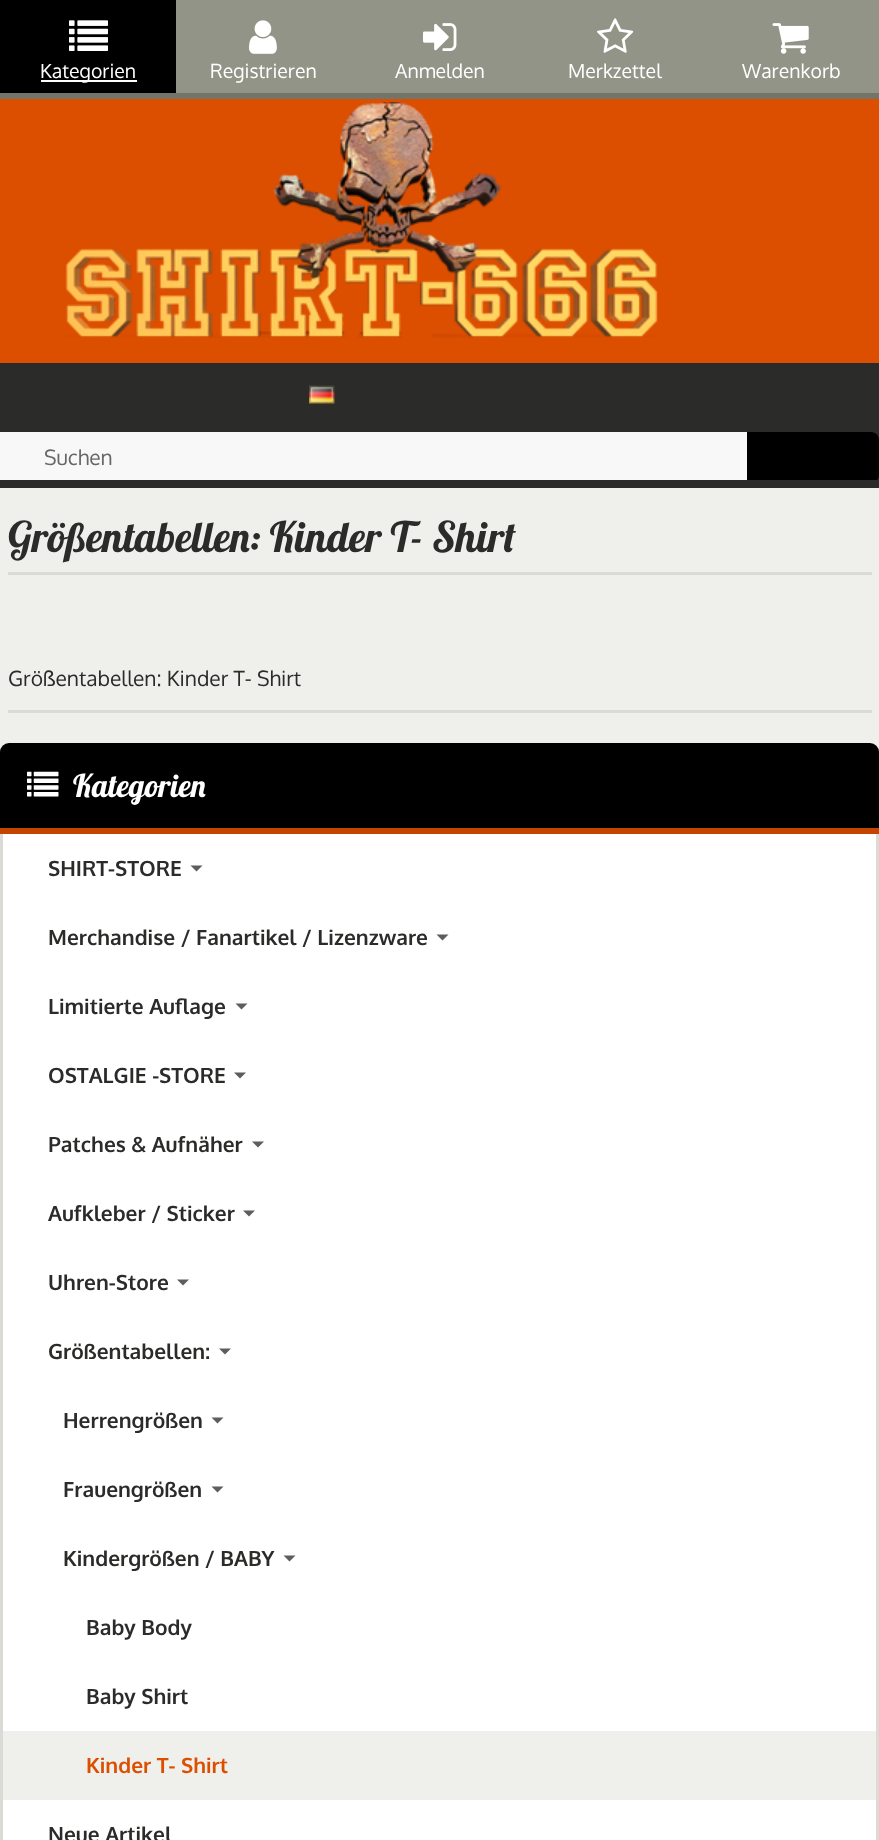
<!DOCTYPE html>
<meta charset="utf-8">
<style>body { margin: 0 } canvas { display: block }</style>
<canvas id="canvas" width="879" height="1840"></canvas>
<img id="img1" src="img_01.png" hidden>
<img id="img2" src="img_02.png" hidden>
<img id="img3" src="img_03.png" hidden>
<img id="img4" src="img_04.png" hidden>
<img id="img5" src="img_05.png" hidden>
<img id="img6" src="img_06.png" hidden>
<img id="img7" src="img_07.png" hidden>
<img id="img8" src="img_08.png" hidden>
<script>
window.onload = function () {
	const canvas = document.getElementById("canvas");
	const ctx = canvas.getContext("2d");
	ctx.miterLimit = 4;
	ctx.fontKerning = "none";
	function txt(s, x, y) {
		ctx.fillText(s, x, y);
	}
	function fill(x, y, w, h) {
		ctx.fillRect(x, y, w, h);
	}
	function img(id, x, y, w, h) {
		ctx.drawImage(document.getElementById(id), x, y, w, h);
	}

	ctx.fillStyle = "#EFEFEB";
	fill(0, 0, 879, 1840);
	ctx.fillStyle = "#DC4E00";
	fill(0, 99, 879, 264);
	ctx.fillStyle = "#929487";
	fill(176, 0, 703, 93);
	ctx.fillStyle = "#73756A";
	fill(0, 93, 879, 6);
	ctx.fillStyle = "#000000";
	fill(0, 0, 176, 93);
	img("img1", 69, 20, 39, 31);
	ctx.fillStyle = "#FFFFFF";
	fill(41, 80, 96, 2);
	img("img2", 249, 20, 28, 34);
	img("img3", 423, 23, 34, 28);
	img("img4", 597, 18, 37, 35);
	img("img5", 772, 23, 37, 31);
	img("img6", 65, 102, 593, 236);
	ctx.fillStyle = "#2B2C2A";
	fill(0, 363, 879, 125);
	img("img7", 309, 385, 26, 19);
	ctx.fillStyle = "#F8F8F8";
	fill(0, 432, 747, 48);
	ctx.save();
	ctx.beginPath();
	ctx.rect(0, 432, 879, 48);
	ctx.clip();
	ctx.fillStyle = "#000000";
	ctx.beginPath();
	ctx.roundRect(747, 432, 132, 51, [0, 8, 8, 0]);
	ctx.fill();
	ctx.restore();
	ctx.fillStyle = "#DADBD4";
	fill(8, 572, 864, 3);
	fill(8, 710, 864, 3);
	ctx.fillStyle = "#000000";
	ctx.beginPath();
	ctx.roundRect(0, 743, 879, 91, [9, 9, 0, 0]);
	ctx.fill();
	ctx.fillStyle = "#C44500";
	fill(0, 828, 879, 6);
	img("img8", 27, 771, 32, 26);
	ctx.fillStyle = "#FFFFFF";
	fill(3, 834, 873, 1006);
	ctx.fillStyle = "#DADBD4";
	ctx.beginPath();
	ctx.moveTo(0, 834);
	ctx.lineTo(879, 834);
	ctx.lineTo(879, 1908);
	ctx.bezierCurveTo(879, 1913, 875, 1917, 870, 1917);
	ctx.lineTo(9, 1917);
	ctx.bezierCurveTo(4, 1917, 0, 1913, 0, 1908);
	ctx.closePath();
	ctx.moveTo(3, 834);
	ctx.lineTo(876, 834);
	ctx.lineTo(876, 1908);
	ctx.bezierCurveTo(876, 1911, 873, 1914, 870, 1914);
	ctx.lineTo(9, 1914);
	ctx.bezierCurveTo(6, 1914, 3, 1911, 3, 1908);
	ctx.closePath();
	ctx.fill("evenodd");
	ctx.fillStyle = "#5D5D5D";
	ctx.beginPath();
	ctx.moveTo(190.5, 865.5);
	ctx.lineTo(202.5, 865.5);
	ctx.lineTo(196.5, 871.5);
	ctx.closePath();
	ctx.fill();
	ctx.beginPath();
	ctx.moveTo(436.5, 934.5);
	ctx.lineTo(448.5, 934.5);
	ctx.lineTo(442.5, 940.5);
	ctx.closePath();
	ctx.fill();
	ctx.beginPath();
	ctx.moveTo(235.5, 1003.5);
	ctx.lineTo(247.5, 1003.5);
	ctx.lineTo(241.5, 1009.5);
	ctx.closePath();
	ctx.fill();
	ctx.beginPath();
	ctx.moveTo(234, 1072.5);
	ctx.lineTo(246, 1072.5);
	ctx.lineTo(240, 1078.5);
	ctx.closePath();
	ctx.fill();
	ctx.beginPath();
	ctx.moveTo(252, 1141.5);
	ctx.lineTo(264, 1141.5);
	ctx.lineTo(258, 1147.5);
	ctx.closePath();
	ctx.fill();
	ctx.beginPath();
	ctx.moveTo(243, 1210.5);
	ctx.lineTo(255, 1210.5);
	ctx.lineTo(249, 1216.5);
	ctx.closePath();
	ctx.fill();
	ctx.beginPath();
	ctx.moveTo(177, 1279.5);
	ctx.lineTo(189, 1279.5);
	ctx.lineTo(183, 1285.5);
	ctx.closePath();
	ctx.fill();
	ctx.beginPath();
	ctx.moveTo(219, 1348.5);
	ctx.lineTo(231, 1348.5);
	ctx.lineTo(225, 1354.5);
	ctx.closePath();
	ctx.fill();
	ctx.beginPath();
	ctx.moveTo(211.5, 1417.5);
	ctx.lineTo(223.5, 1417.5);
	ctx.lineTo(217.5, 1423.5);
	ctx.closePath();
	ctx.fill();
	ctx.beginPath();
	ctx.moveTo(211.5, 1486.5);
	ctx.lineTo(223.5, 1486.5);
	ctx.lineTo(217.5, 1492.5);
	ctx.closePath();
	ctx.fill();
	ctx.beginPath();
	ctx.moveTo(283.5, 1555.5);
	ctx.lineTo(295.5, 1555.5);
	ctx.lineTo(289.5, 1561.5);
	ctx.closePath();
	ctx.fill();
	ctx.fillStyle = "#EFEFEB";
	fill(3, 1731, 873, 69);
	ctx.font = "19.5px Oxygen";
	ctx.fillStyle = "#FFFFFF";
	txt("Kategorien", 40, 78);
	txt("Registrieren", 210, 78);
	txt("Anmelden", 395, 78);
	txt("Merkzettel", 568, 78);
	txt("Warenkorb", 742, 78);
	ctx.font = "21px Oxygen";
	ctx.fillStyle = "#676767";
	txt("Suchen", 44, 465);
	ctx.font = "42px Lobster";
	ctx.fillStyle = "#2B2C2A";
	txt("Größentabellen: Kinder T- Shirt", 8, 552);
	ctx.font = "21px Oxygen";
	txt("Größentabellen: Kinder T- Shirt", 8, 686);
	ctx.font = "31.5px Lobster";
	ctx.fillStyle = "#FFFFFF";
	txt("Kategorien", 73, 797);
	ctx.font = "bold 21px Oxygen";
	ctx.fillStyle = "#2B2C2A";
	txt("SHIRT-STORE", 48, 876);
	txt("Merchandise / Fanartikel / Lizenzware", 48, 945);
	txt("Limitierte Auflage", 48, 1014);
	txt("OSTALGIE -STORE", 48, 1083);
	txt("Patches & Aufnäher", 48, 1152);
	txt("Aufkleber / Sticker", 48, 1221);
	txt("Uhren-Store", 48, 1290);
	txt("Größentabellen:", 48, 1359);
	txt("Herrengrößen", 63, 1428);
	txt("Frauengrößen", 63, 1497);
	txt("Kindergrößen / BABY", 63, 1566);
	txt("Baby Body", 86, 1635);
	txt("Baby Shirt", 86, 1704);
	ctx.fillStyle = "#DC4E00";
	txt("Kinder T- Shirt", 86, 1773);
	ctx.fillStyle = "#2B2C2A";
	txt("Neue Artikel", 48, 1842);
};
</script>
